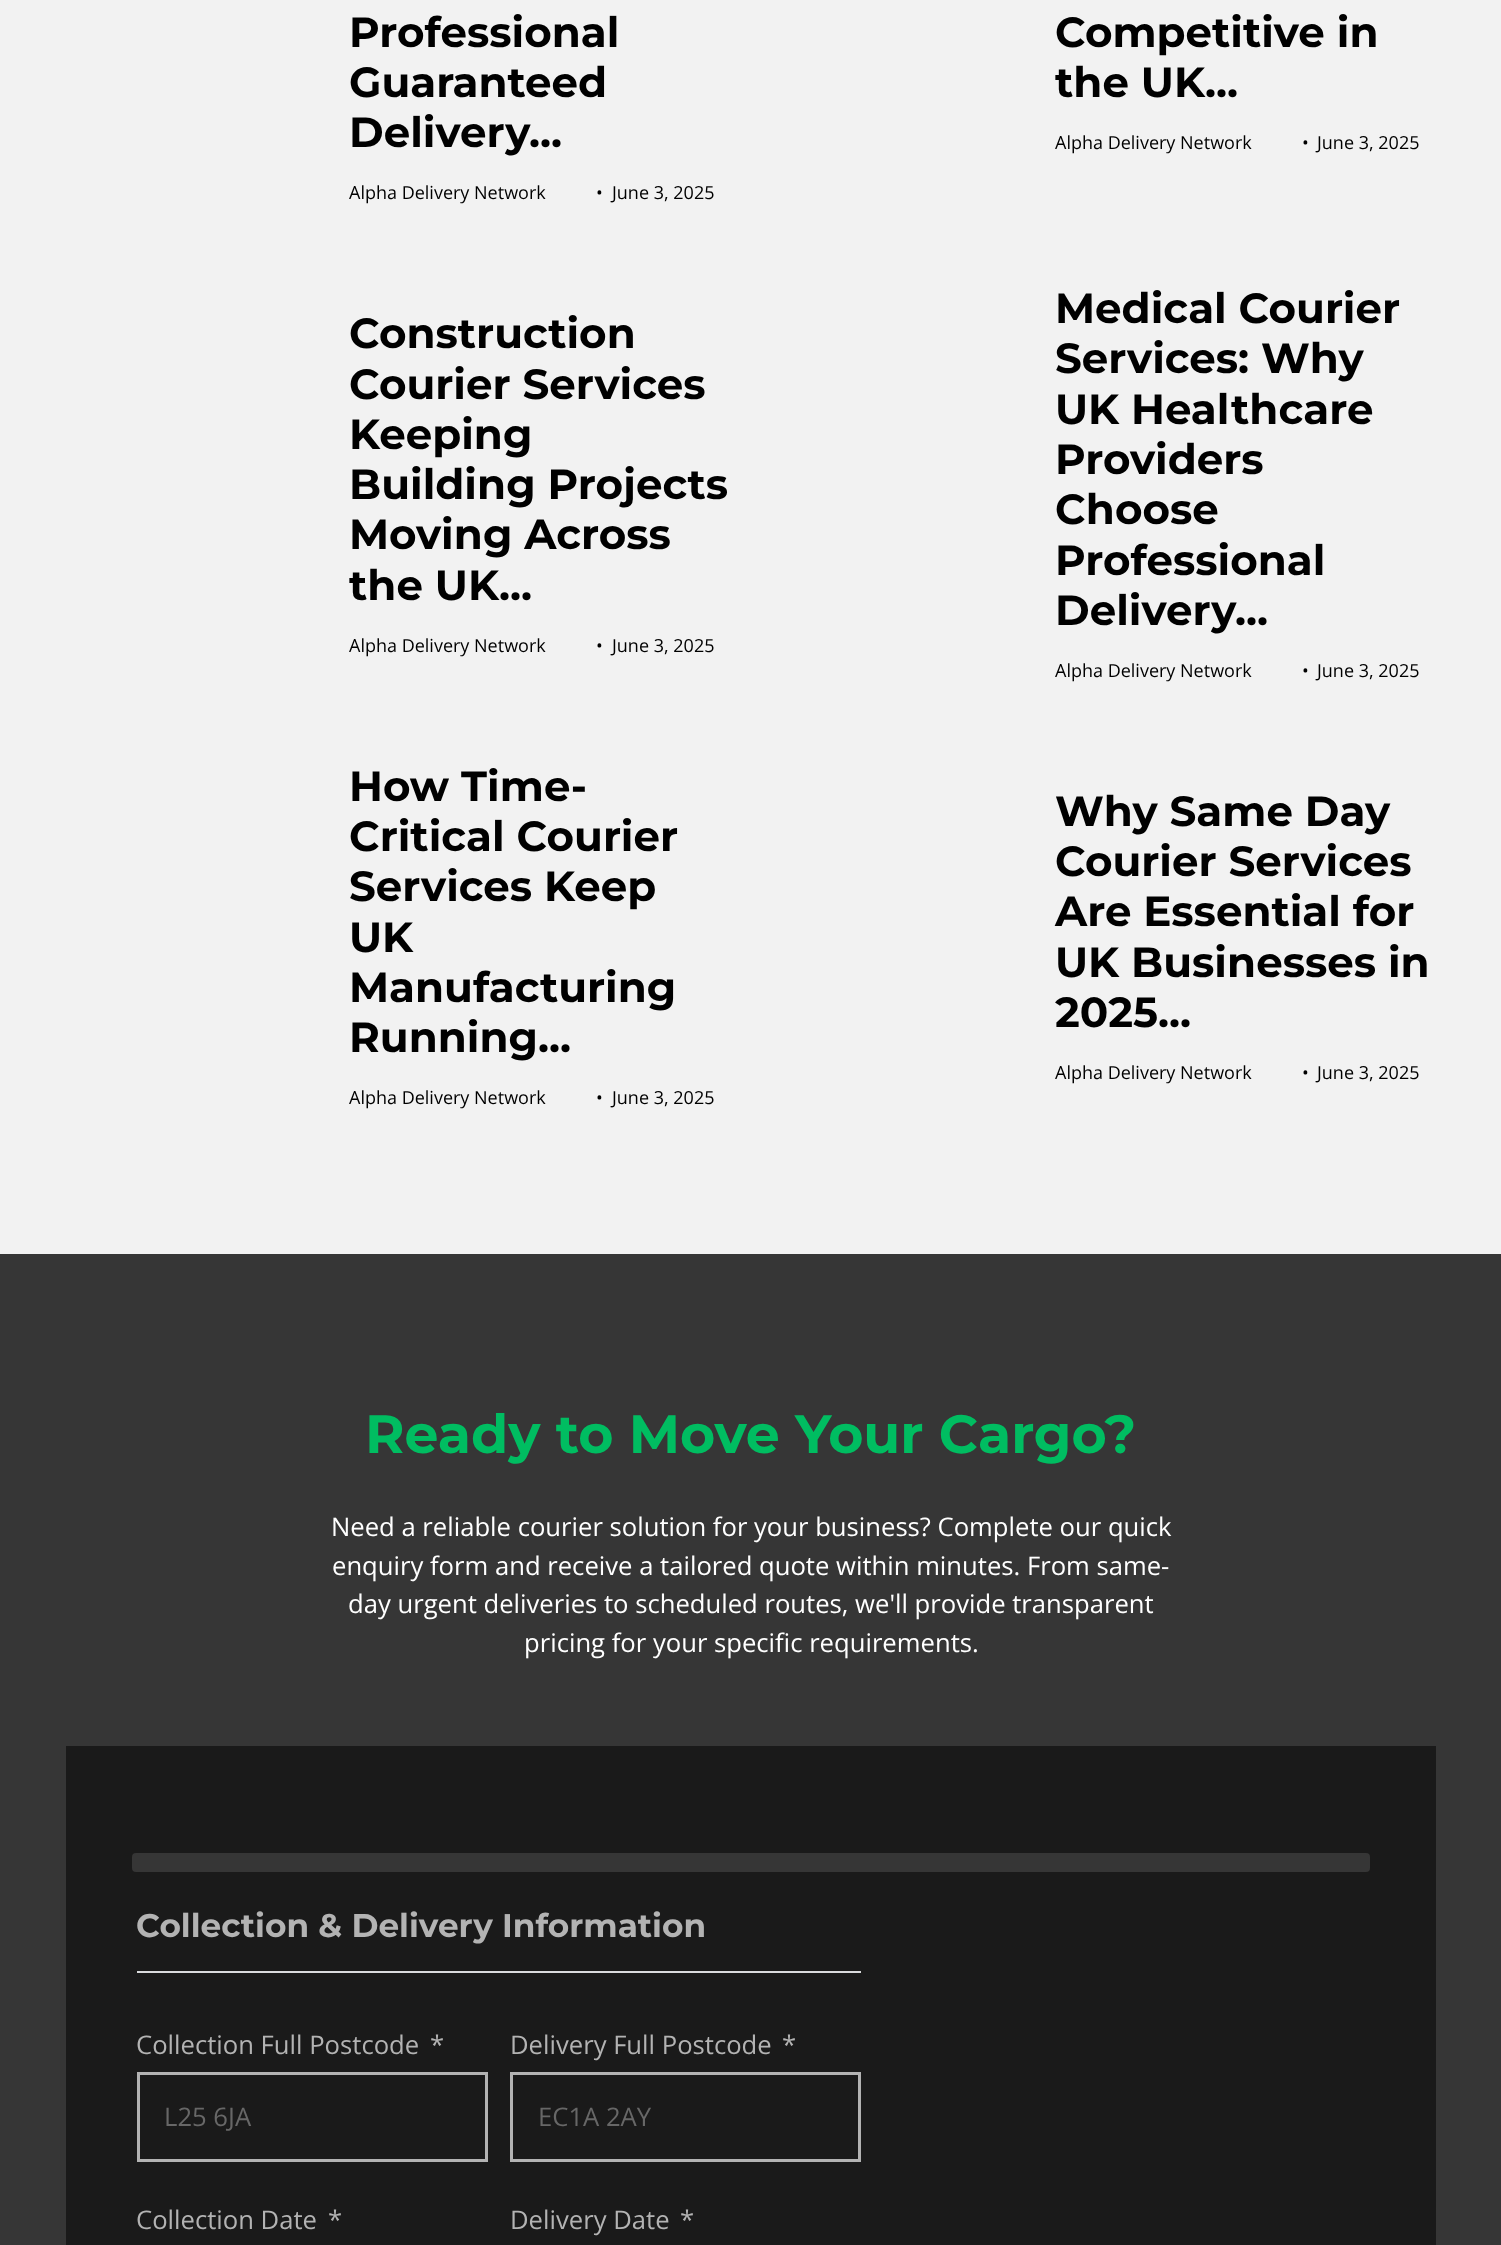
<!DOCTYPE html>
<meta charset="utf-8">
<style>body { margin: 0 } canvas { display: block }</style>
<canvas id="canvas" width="1501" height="2245"></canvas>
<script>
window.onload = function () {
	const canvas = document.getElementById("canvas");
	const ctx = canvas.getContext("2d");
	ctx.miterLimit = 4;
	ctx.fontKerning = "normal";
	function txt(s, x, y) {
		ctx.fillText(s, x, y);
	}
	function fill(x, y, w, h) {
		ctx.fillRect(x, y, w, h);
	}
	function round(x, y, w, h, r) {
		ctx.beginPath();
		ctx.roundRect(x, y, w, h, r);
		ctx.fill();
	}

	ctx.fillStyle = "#F2F2F2";
	fill(0, 0, 1501, 2245);
	ctx.fillStyle = "#363636";
	fill(0, 1254, 1501, 991);
	ctx.fillStyle = "#1A1A1A";
	fill(66, 1746, 1370, 499);
	ctx.fillStyle = "#363636";
	round(132, 1853, 1238, 19, 4);
	ctx.fillStyle = "#DADBDD";
	fill(137, 1971, 724, 2);
	ctx.strokeStyle = "#B3B3B3";
	ctx.lineWidth = 3;
	ctx.strokeRect(138.5, 2073.5, 348, 87);
	ctx.strokeRect(511.5, 2073.5, 348, 87);
	ctx.font = "100 42px Montserrat";
	ctx.fillStyle = "#000000";
	txt("Professional", 349, 47);
	txt("Guaranteed", 349, 97);
	txt("Delivery...", 349, 147);
	ctx.font = "18px Open Sans";
	txt("Alpha Delivery Network", 349, 199);
	txt("•", 596, 199);
	txt("June 3, 2025", 612, 199);
	ctx.font = "100 42px Montserrat";
	txt("Competitive in", 1055, 47);
	txt("the UK...", 1055, 97);
	ctx.font = "18px Open Sans";
	txt("Alpha Delivery Network", 1055, 149);
	txt("•", 1302, 149);
	txt("June 3, 2025", 1317, 149);
	ctx.font = "100 42px Montserrat";
	txt("Construction", 349, 348);
	txt("Courier Services", 349, 399);
	txt("Keeping", 349, 449);
	txt("Building Projects", 349, 499);
	txt("Moving Across", 349, 549);
	txt("the UK...", 349, 600);
	ctx.font = "18px Open Sans";
	txt("Alpha Delivery Network", 349, 652);
	txt("•", 596, 652);
	txt("June 3, 2025", 612, 652);
	ctx.font = "100 42px Montserrat";
	txt("Medical Courier", 1055, 323);
	txt("Services: Why", 1055, 373);
	txt("UK Healthcare", 1055, 424);
	txt("Providers", 1055, 474);
	txt("Choose", 1055, 524);
	txt("Professional", 1055, 575);
	txt("Delivery...", 1055, 625);
	ctx.font = "18px Open Sans";
	txt("Alpha Delivery Network", 1055, 677);
	txt("•", 1302, 677);
	txt("June 3, 2025", 1317, 677);
	ctx.font = "100 42px Montserrat";
	txt("How Time-", 349, 801);
	txt("Critical Courier", 349, 851);
	txt("Services Keep", 349, 901);
	txt("UK", 349, 952);
	txt("Manufacturing", 349, 1002);
	txt("Running...", 349, 1052);
	ctx.font = "18px Open Sans";
	txt("Alpha Delivery Network", 349, 1104);
	txt("•", 596, 1104);
	txt("June 3, 2025", 612, 1104);
	ctx.font = "100 42px Montserrat";
	txt("Why Same Day", 1055, 826);
	txt("Courier Services", 1055, 876);
	txt("Are Essential for", 1055, 926);
	txt("UK Businesses in", 1055, 977);
	txt("2025...", 1055, 1027);
	ctx.font = "18px Open Sans";
	txt("Alpha Delivery Network", 1055, 1079);
	txt("•", 1302, 1079);
	txt("June 3, 2025", 1317, 1079);
	ctx.font = "100 53.8px Montserrat";
	ctx.fillStyle = "#00BD61";
	txt("Ready to Move Your Cargo?", 365, 1453);
	ctx.font = "25.65px Open Sans";
	ctx.fillStyle = "#FFFFFF";
	txt("Need a reliable courier solution for your business? Complete our quick", 331, 1536);
	txt("enquiry form and receive a tailored quote within minutes. From same-", 332, 1575);
	txt("day urgent deliveries to scheduled routes, we'll provide transparent", 348, 1613);
	txt("pricing for your specific requirements.", 524, 1652);
	ctx.font = "100 32.75px Montserrat";
	ctx.fillStyle = "#B3B3B3";
	txt("Collection & Delivery Information", 136, 1937);
	ctx.font = "25.65px Open Sans";
	txt("Collection Full Postcode", 136, 2054);
	txt("*", 430, 2054);
	ctx.fillStyle = "#676767";
	txt("L25 6JA", 164, 2126);
	ctx.fillStyle = "#B3B3B3";
	txt("Delivery Full Postcode", 510, 2054);
	txt("*", 782, 2054);
	ctx.fillStyle = "#676767";
	txt("EC1A 2AY", 538, 2126);
	ctx.fillStyle = "#B3B3B3";
	txt("Collection Date", 136, 2229);
	txt("*", 328, 2229);
	txt("Delivery Date", 510, 2229);
	txt("*", 680, 2229);
};
</script>
